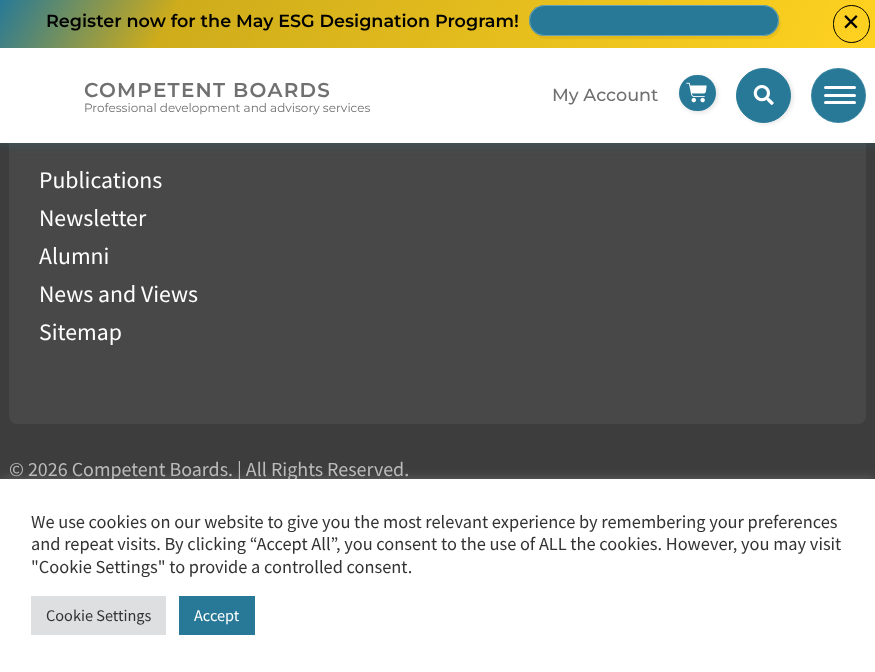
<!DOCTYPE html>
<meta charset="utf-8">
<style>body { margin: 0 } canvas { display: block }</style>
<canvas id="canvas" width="875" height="672"></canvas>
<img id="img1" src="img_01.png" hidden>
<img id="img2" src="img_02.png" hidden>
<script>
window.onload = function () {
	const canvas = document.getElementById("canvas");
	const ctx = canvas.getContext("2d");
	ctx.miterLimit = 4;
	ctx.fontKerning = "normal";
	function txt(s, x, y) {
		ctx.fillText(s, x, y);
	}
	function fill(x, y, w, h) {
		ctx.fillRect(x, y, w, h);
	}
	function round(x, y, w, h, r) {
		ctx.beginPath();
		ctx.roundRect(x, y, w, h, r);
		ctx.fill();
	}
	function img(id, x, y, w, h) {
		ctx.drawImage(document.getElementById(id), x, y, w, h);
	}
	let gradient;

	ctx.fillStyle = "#3D3D3D";
	fill(0, 0, 875, 672);
	ctx.fillStyle = "#484848";
	ctx.beginPath();
	ctx.moveTo(9, -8);
	ctx.lineTo(866, -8);
	ctx.lineTo(866, 416);
	ctx.bezierCurveTo(866, 420.5, 862.5, 424, 858, 424);
	ctx.lineTo(17, 424);
	ctx.bezierCurveTo(12.5, 424, 9, 420.5, 9, 416);
	ctx.closePath();
	ctx.fill();
	ctx.fillStyle = "rgba(39, 121, 150, 0.4)";
	ctx.filter = "blur(5.5px)";
	ctx.beginPath();
	ctx.rect(-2, -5, 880, 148);
	ctx.fill();
	ctx.filter = "none";
	ctx.fillStyle = "#FFFFFF";
	fill(0, 48, 875, 95);
	gradient = ctx.createLinearGradient(99, -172, 776, 219);
	gradient.addColorStop(0, "#277997");
	gradient.addColorStop(0.2, "#CEAC1B");
	gradient.addColorStop(0.98, "#FED120");
	ctx.fillStyle = gradient;
	fill(0, 0, 875, 48);
	ctx.fillStyle = "rgba(0, 0, 0, 0.05)";
	ctx.beginPath();
	ctx.moveTo(533, 32);
	ctx.bezierCurveTo(536, 36, 541, 39, 546, 39);
	ctx.lineTo(766, 39);
	ctx.bezierCurveTo(774, 39, 781, 32, 781, 24);
	ctx.bezierCurveTo(781, 19, 779, 15, 777, 13);
	ctx.bezierCurveTo(778, 15, 779, 18, 779, 21);
	ctx.bezierCurveTo(779, 29, 772, 36, 763, 36);
	ctx.lineTo(544, 36);
	ctx.bezierCurveTo(540, 36, 536, 35, 533, 32);
	ctx.closePath();
	ctx.fill();
	ctx.fillStyle = "#277997";
	round(529, 5, 250, 31, 15.5);
	ctx.beginPath();
	ctx.roundRect(529.5, 5.5, 249, 30, 15);
	ctx.strokeStyle = "rgba(255, 255, 255, 0.3)";
	ctx.stroke();
	ctx.beginPath();
	ctx.roundRect(833.5, 5.5, 36, 37, 18);
	ctx.strokeStyle = "#000000";
	ctx.stroke();
	ctx.fillStyle = "rgba(0, 0, 0, 0.1)";
	ctx.filter = "blur(2px)";
	ctx.beginPath();
	ctx.roundRect(680, 76, 38, 37, 18.5);
	ctx.fill();
	ctx.filter = "none";
	ctx.fillStyle = "#277997";
	round(679, 75, 37, 36, 18);
	img("img1", 686, 82, 21, 21);
	ctx.fillStyle = "rgba(0, 0, 0, 0.1)";
	ctx.filter = "blur(2px)";
	ctx.beginPath();
	ctx.roundRect(738, 69, 55, 55, 27.5);
	ctx.fill();
	ctx.filter = "none";
	ctx.fillStyle = "#277997";
	ctx.beginPath();
	ctx.arc(763.5, 95.5, 27, 0, Math.PI * 2);
	ctx.fill();
	ctx.strokeStyle = "#277997";
	ctx.stroke();
	img("img2", 753, 85, 21, 20);
	ctx.beginPath();
	ctx.arc(838.5, 95.5, 27.5, 0, Math.PI * 2);
	ctx.fill();
	ctx.beginPath();
	ctx.arc(838.5, 95.5, 27, 0, Math.PI * 2);
	ctx.strokeStyle = "rgba(255, 255, 255, 0.1)";
	ctx.stroke();
	ctx.fillStyle = "#FFFFFF";
	round(824, 86, 32, 3, 1.5);
	round(824, 94, 32, 3, 1.5);
	round(824, 101, 32, 3, 1.5);
	ctx.fillStyle = "rgba(172, 171, 171, 0.3)";
	ctx.filter = "blur(6px)";
	ctx.beginPath();
	ctx.rect(0, 478, 875, 193);
	ctx.fill();
	ctx.filter = "none";
	ctx.font = "600 17.6px Montserrat";
	ctx.fillStyle = "#000000";
	txt("Register now for the May ESG Designation Program!", 46, 27);
	ctx.font = "38px Montserrat";
	txt("×", 840, 35);
	ctx.letterSpacing = "1.25px";
	ctx.font = "600 20px Montserrat";
	ctx.fillStyle = "#707070";
	txt("COMPETENT BOARDS", 84, 97);
	ctx.letterSpacing = "0px";
	ctx.font = "12px Montserrat";
	txt("Professional development and advisory services", 84, 112);
	ctx.font = "500 17.6px Montserrat";
	txt("My Account", 552, 101);
	ctx.font = "23.75px Source Sans Pro";
	ctx.fillStyle = "#FFFFFF";
	txt("Publications", 39, 188);
	txt("Newsletter", 39, 226);
	txt("Alumni", 39, 264);
	txt("News and Views", 39, 302);
	txt("Sitemap", 39, 340);
	ctx.font = "20px Source Sans Pro";
	ctx.fillStyle = "#BBBBBB";
	txt("© 2026 Competent Boards. | All Rights Reserved.", 9, 476);
	ctx.fillStyle = "#FFFFFF";
	fill(0, 479, 875, 193);
	ctx.font = "18.35px Source Sans Pro";
	ctx.fillStyle = "#333333";
	txt("We use cookies on our website to give you the most relevant experience by remembering your preferences", 31, 528);
	txt("and repeat visits. By clicking “Accept All”, you consent to the use of ALL the cookies. However, you may visit", 31, 550);
	txt("\"Cookie Settings\" to provide a controlled consent.", 31, 573);
	ctx.fillStyle = "#DEDFE0";
	fill(31, 596, 135, 39);
	ctx.font = "16.25px Source Sans Pro";
	ctx.fillStyle = "#333333";
	txt("Cookie Settings", 46, 621);
	ctx.fillStyle = "#277997";
	fill(179, 596, 76, 39);
	ctx.fillStyle = "#FFFFFF";
	txt("Accept", 194, 621);
};
</script>
